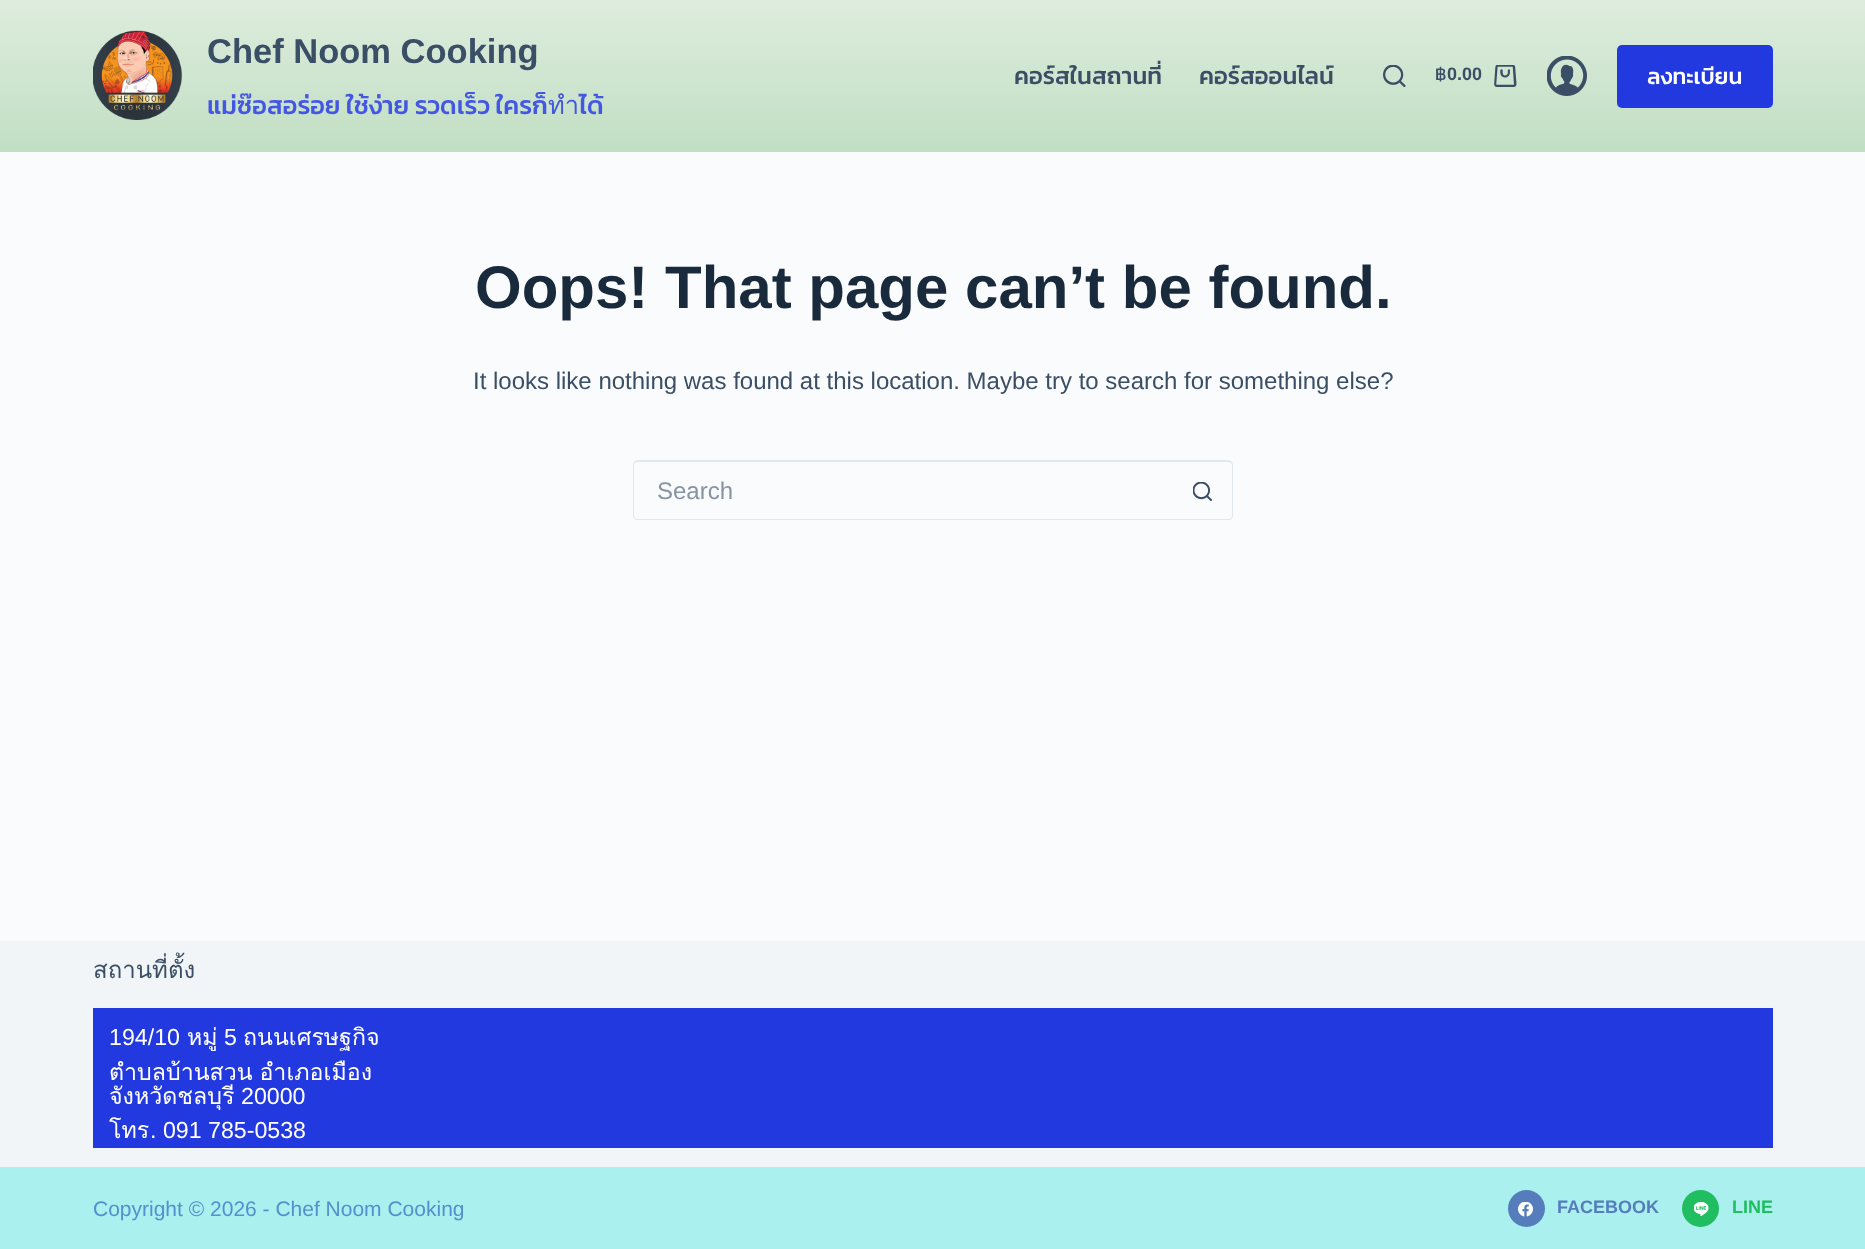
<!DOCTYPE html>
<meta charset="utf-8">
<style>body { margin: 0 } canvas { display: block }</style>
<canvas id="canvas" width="1865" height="1249"></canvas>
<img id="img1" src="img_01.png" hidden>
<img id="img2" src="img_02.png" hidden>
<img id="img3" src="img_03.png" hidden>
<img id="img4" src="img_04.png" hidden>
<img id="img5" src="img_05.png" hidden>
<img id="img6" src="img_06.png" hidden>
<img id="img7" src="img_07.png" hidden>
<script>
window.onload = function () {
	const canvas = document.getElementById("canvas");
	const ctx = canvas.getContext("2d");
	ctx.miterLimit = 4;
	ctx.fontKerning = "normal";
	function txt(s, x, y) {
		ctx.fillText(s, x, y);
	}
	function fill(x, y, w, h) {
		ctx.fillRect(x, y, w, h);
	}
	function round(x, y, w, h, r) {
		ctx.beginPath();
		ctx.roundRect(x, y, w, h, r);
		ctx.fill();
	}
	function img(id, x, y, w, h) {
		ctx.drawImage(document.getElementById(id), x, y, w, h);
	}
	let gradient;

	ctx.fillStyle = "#FAFBFC";
	fill(0, 0, 1865, 1249);
	gradient = ctx.createLinearGradient(933, 152, 933, 0);
	gradient.addColorStop(0, "#C1DFC4");
	gradient.addColorStop(1, "#DEECDD");
	ctx.fillStyle = gradient;
	fill(0, 0, 1865, 152);
	img("img1", 93, 30, 90, 90);
	img("img2", 1383, 65, 23, 22);
	img("img3", 1494, 65, 23, 22);
	img("img4", 1547, 56, 40, 40);
	ctx.fillStyle = "#2239E0";
	round(1617, 45, 156, 63, 5);
	ctx.fillStyle = "#E1E8ED";
	ctx.beginPath();
	ctx.moveTo(638, 460);
	ctx.lineTo(1173, 460);
	ctx.lineTo(1173, 520);
	ctx.lineTo(638, 520);
	ctx.bezierCurveTo(635, 520, 633, 518, 633, 516);
	ctx.lineTo(633, 465);
	ctx.bezierCurveTo(633, 463, 635, 460, 638, 460);
	ctx.closePath();
	ctx.moveTo(638, 462);
	ctx.lineTo(1173, 462);
	ctx.lineTo(1173, 519);
	ctx.lineTo(638, 519);
	ctx.bezierCurveTo(636, 519, 634, 518, 634, 516);
	ctx.lineTo(634, 465);
	ctx.bezierCurveTo(634, 463, 636, 462, 638, 462);
	ctx.closePath();
	ctx.fill("evenodd");
	ctx.beginPath();
	ctx.moveTo(1173, 460);
	ctx.lineTo(1228, 460);
	ctx.bezierCurveTo(1231, 460, 1233, 463, 1233, 465);
	ctx.lineTo(1233, 516);
	ctx.bezierCurveTo(1233, 518, 1231, 520, 1228, 520);
	ctx.lineTo(1173, 520);
	ctx.closePath();
	ctx.moveTo(1173, 462);
	ctx.lineTo(1228, 462);
	ctx.bezierCurveTo(1230, 462, 1232, 463, 1232, 465);
	ctx.lineTo(1232, 516);
	ctx.bezierCurveTo(1232, 518, 1230, 519, 1228, 519);
	ctx.lineTo(1173, 519);
	ctx.closePath();
	ctx.fill("evenodd");
	img("img5", 1193, 482, 19, 19);
	ctx.fillStyle = "#F2F5F7";
	fill(0, 941, 1865, 226);
	ctx.fillStyle = "#2239E0";
	fill(93, 1008, 1680, 140);
	ctx.fillStyle = "#A9F0EF";
	fill(0, 1167, 1865, 82);
	ctx.fillStyle = "#557DBC";
	ctx.beginPath();
	ctx.arc(1526.5, 1208.5, 18.5, 0, Math.PI * 2);
	ctx.fill();
	img("img6", 1518, 1202, 15, 15);
	ctx.fillStyle = "#20BE60";
	ctx.beginPath();
	ctx.arc(1700.5, 1208.5, 18.5, 0, Math.PI * 2);
	ctx.fill();
	img("img7", 1694, 1202, 15, 15);
	ctx.font = "bold 34.5px Liberation Sans";
	ctx.fillStyle = "#3A4F66";
	txt("Chef Noom Cooking", 207, 63);
	ctx.font = "500 25.5px Kanit";
	ctx.fillStyle = "#4457E4";
	txt("แม่ซ๊อสอร่อย ใช้ง่าย รวดเร็ว ใครก็ทำได้", 207, 114);
	ctx.font = "500 24px Kanit";
	ctx.fillStyle = "#3A4F66";
	txt("คอร์สในสถานที่", 1014, 84);
	txt("คอร์สออนไลน์", 1199, 84);
	ctx.font = "18px Kanit";
	txt("฿", 1435, 80);
	ctx.font = "bold 18px Liberation Sans";
	txt("0.00", 1447, 80);
	ctx.font = "500 22.5px Kanit";
	ctx.fillStyle = "#FFFFFF";
	txt("ลงทะเบียน", 1647, 84);
	ctx.font = "bold 60px Liberation Sans";
	ctx.fillStyle = "#192A3D";
	txt("Oops! That page can’t be found.", 475, 308);
	ctx.font = "24px Liberation Sans";
	ctx.fillStyle = "#3A4F66";
	txt("It looks like nothing was found at this location. Maybe try to search for something else?", 473, 389);
	ctx.fillStyle = "#8794A2";
	txt("Search", 657, 499);
	ctx.font = "24px Loma";
	ctx.fillStyle = "#3A4F66";
	txt("สถานที่ตั้ง", 93, 978);
	ctx.font = "23.2px Liberation Sans";
	ctx.fillStyle = "#FFFFFF";
	txt("194/10", 109, 1045);
	ctx.font = "23.2px Loma";
	txt("หมู่", 187, 1045);
	ctx.font = "23.2px Liberation Sans";
	txt("5", 224, 1045);
	ctx.font = "23.2px Loma";
	txt("ถนนเศรษฐกิจ", 243, 1045);
	ctx.wordSpacing = "-1px";
	txt("ตำบลบ้านสวน อำเภอเมือง", 109, 1080);
	ctx.wordSpacing = "0px";
	txt("จังหวัดชลบุรี", 109, 1104);
	ctx.font = "23.2px Liberation Sans";
	txt("20000", 241, 1104);
	ctx.font = "23.2px Loma";
	txt("โทร", 109, 1138);
	ctx.font = "23.2px Liberation Sans";
	txt(". 091 785-0538", 150, 1138);
	ctx.font = "21px Liberation Sans";
	ctx.fillStyle = "#568FCD";
	txt("Copyright © 2026 - Chef Noom Cooking", 93, 1216);
	ctx.font = "bold 18px Liberation Sans";
	ctx.fillStyle = "#557DBC";
	txt("FACEBOOK", 1557, 1213);
	ctx.fillStyle = "#20BE60";
	txt("LINE", 1732, 1213);
};
</script>
